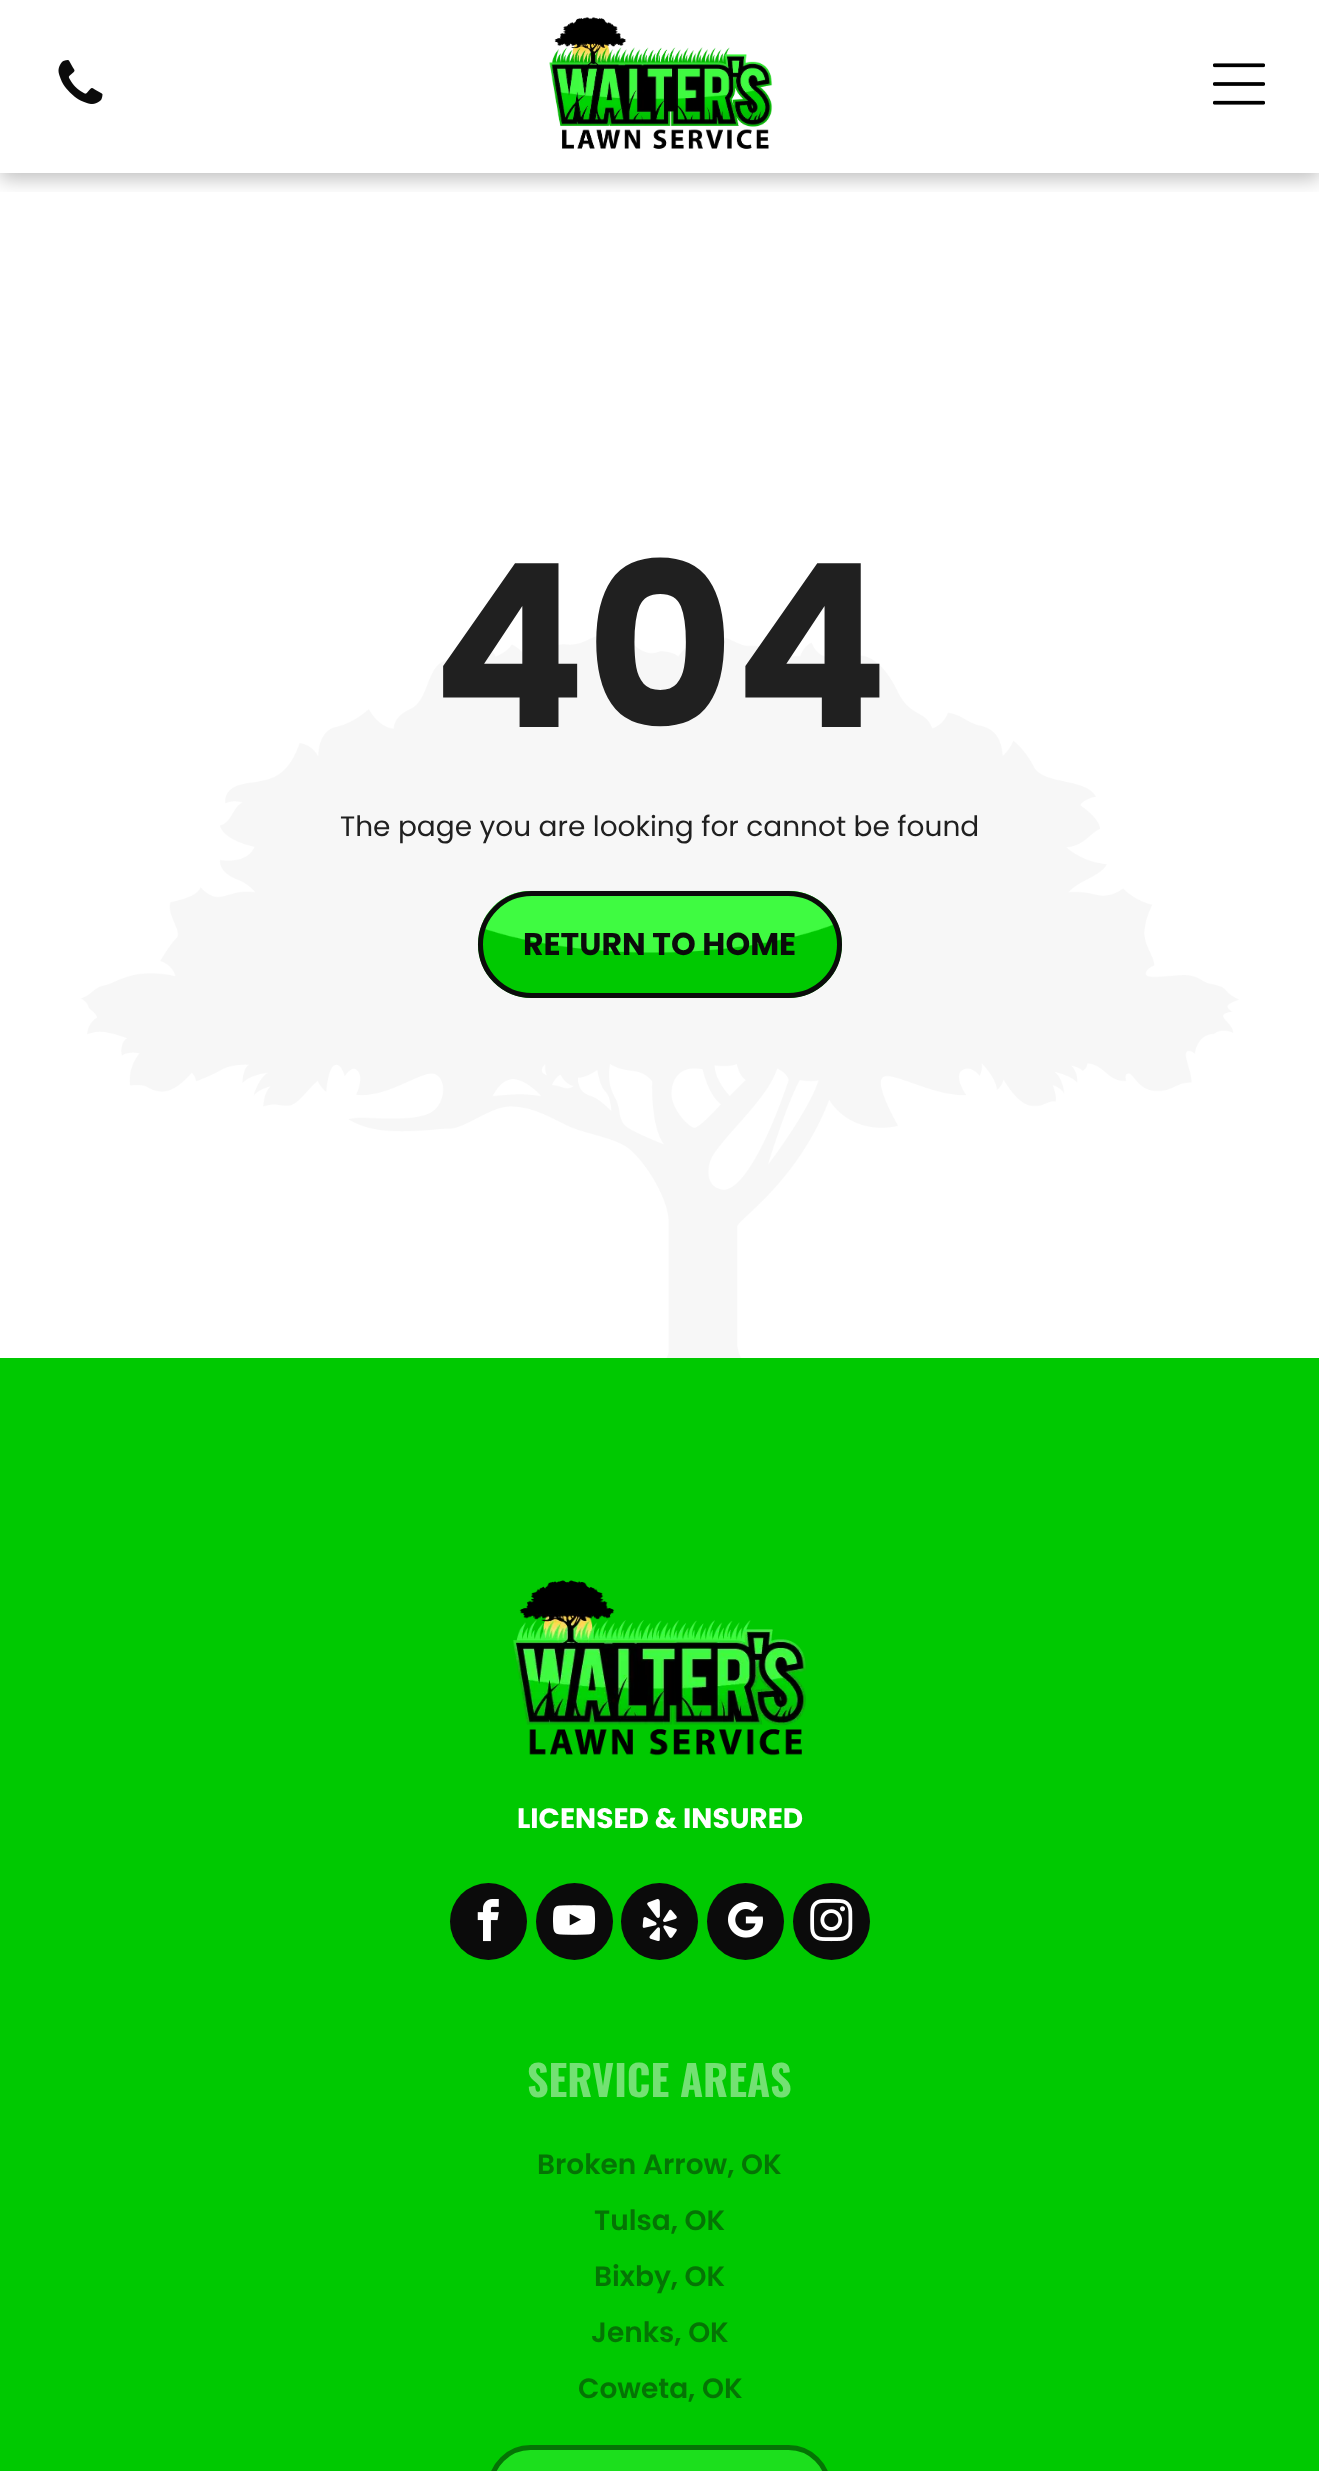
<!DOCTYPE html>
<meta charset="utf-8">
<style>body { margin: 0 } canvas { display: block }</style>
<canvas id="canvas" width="1319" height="2471"></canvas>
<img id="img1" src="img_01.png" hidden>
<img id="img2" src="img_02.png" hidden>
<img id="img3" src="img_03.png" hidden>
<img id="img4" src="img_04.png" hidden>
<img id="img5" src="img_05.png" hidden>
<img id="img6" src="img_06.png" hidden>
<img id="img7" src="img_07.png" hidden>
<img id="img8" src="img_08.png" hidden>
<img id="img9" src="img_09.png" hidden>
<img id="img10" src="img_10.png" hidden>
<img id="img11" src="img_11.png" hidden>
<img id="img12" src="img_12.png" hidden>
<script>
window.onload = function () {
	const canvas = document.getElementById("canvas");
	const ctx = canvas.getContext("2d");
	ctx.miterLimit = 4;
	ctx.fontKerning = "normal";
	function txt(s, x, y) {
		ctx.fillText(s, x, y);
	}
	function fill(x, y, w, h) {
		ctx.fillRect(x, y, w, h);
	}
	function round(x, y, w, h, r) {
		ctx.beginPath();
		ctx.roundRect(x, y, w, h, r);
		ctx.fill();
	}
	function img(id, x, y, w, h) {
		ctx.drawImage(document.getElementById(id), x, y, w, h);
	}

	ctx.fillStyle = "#FFFFFF";
	fill(0, 0, 1319, 2471);
	ctx.save();
	ctx.beginPath();
	ctx.rect(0, 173, 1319, 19);
	ctx.clip();
	ctx.fillStyle = "rgba(0, 0, 0, 0.25)";
	ctx.filter = "blur(9.5px)";
	ctx.beginPath();
	ctx.rect(0, 5, 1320, 174);
	ctx.fill();
	ctx.filter = "none";
	ctx.restore();
	img("img1", 58, 60, 45, 44);
	img("img2", 549, 17, 224, 132);
	img("img3", 1213, 63, 52, 42);
	img("img4", 80, 634, 1159, 724);
	ctx.fillStyle = "#00C901";
	round(478, 891, 364, 107, 53.5);
	img("img5", 483, 890, 354, 63);
	ctx.beginPath();
	ctx.roundRect(480.5, 893.5, 359, 102, 51);
	ctx.strokeStyle = "#0B0B0B";
	ctx.lineWidth = 5;
	ctx.stroke();
	fill(0, 1358, 1319, 1113);
	img("img6", 513, 1580, 293, 176);
	ctx.fillStyle = "#0B0B0B";
	ctx.beginPath();
	ctx.arc(488.5, 1921.5, 38.5, 0, Math.PI * 2);
	ctx.fill();
	img("img7", 477, 1899, 22, 43);
	ctx.beginPath();
	ctx.arc(574.5, 1921.5, 38.5, 0, Math.PI * 2);
	ctx.fill();
	img("img8", 553, 1905, 43, 30);
	ctx.beginPath();
	ctx.arc(659.5, 1921.5, 38.5, 0, Math.PI * 2);
	ctx.fill();
	img("img9", 642, 1899, 35, 42);
	ctx.beginPath();
	ctx.arc(745.5, 1921.5, 38.5, 0, Math.PI * 2);
	ctx.fill();
	img("img10", 728, 1901, 35, 37);
	ctx.beginPath();
	ctx.arc(831.5, 1921.5, 38.5, 0, Math.PI * 2);
	ctx.fill();
	img("img11", 810, 1899, 43, 43);
	img("img12", 496, 2445, 328, 26);
	ctx.beginPath();
	ctx.roundRect(490.5, 2447.5, 338, 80, 51);
	ctx.strokeStyle = "#057405";
	ctx.stroke();
	ctx.font = "bold 227.5px Poppins";
	ctx.fillStyle = "#202020";
	txt("404", 432, 727);
	ctx.font = "28px Poppins";
	txt("The page you are looking for cannot be found", 340, 836);
	ctx.font = "bold 31.5px Poppins";
	ctx.fillStyle = "#0B0B0B";
	txt("RETURN TO HOME", 523, 955);
	ctx.font = "bold 28px Poppins";
	ctx.fillStyle = "#FFFFFF";
	txt("LICENSED & INSURED", 517, 1828);
	ctx.font = "bold 42px Oswald";
	ctx.fillStyle = "#73E173";
	txt("SERVICE AREAS", 527, 2097);
	ctx.font = "600 28px Poppins";
	ctx.fillStyle = "#057405";
	txt("Broken Arrow, OK", 537, 2174);
	txt("Tulsa, OK", 594, 2230);
	txt("Bixby, OK", 594, 2286);
	txt("Jenks, OK", 591, 2342);
	txt("Coweta, OK", 578, 2398);
};
</script>
